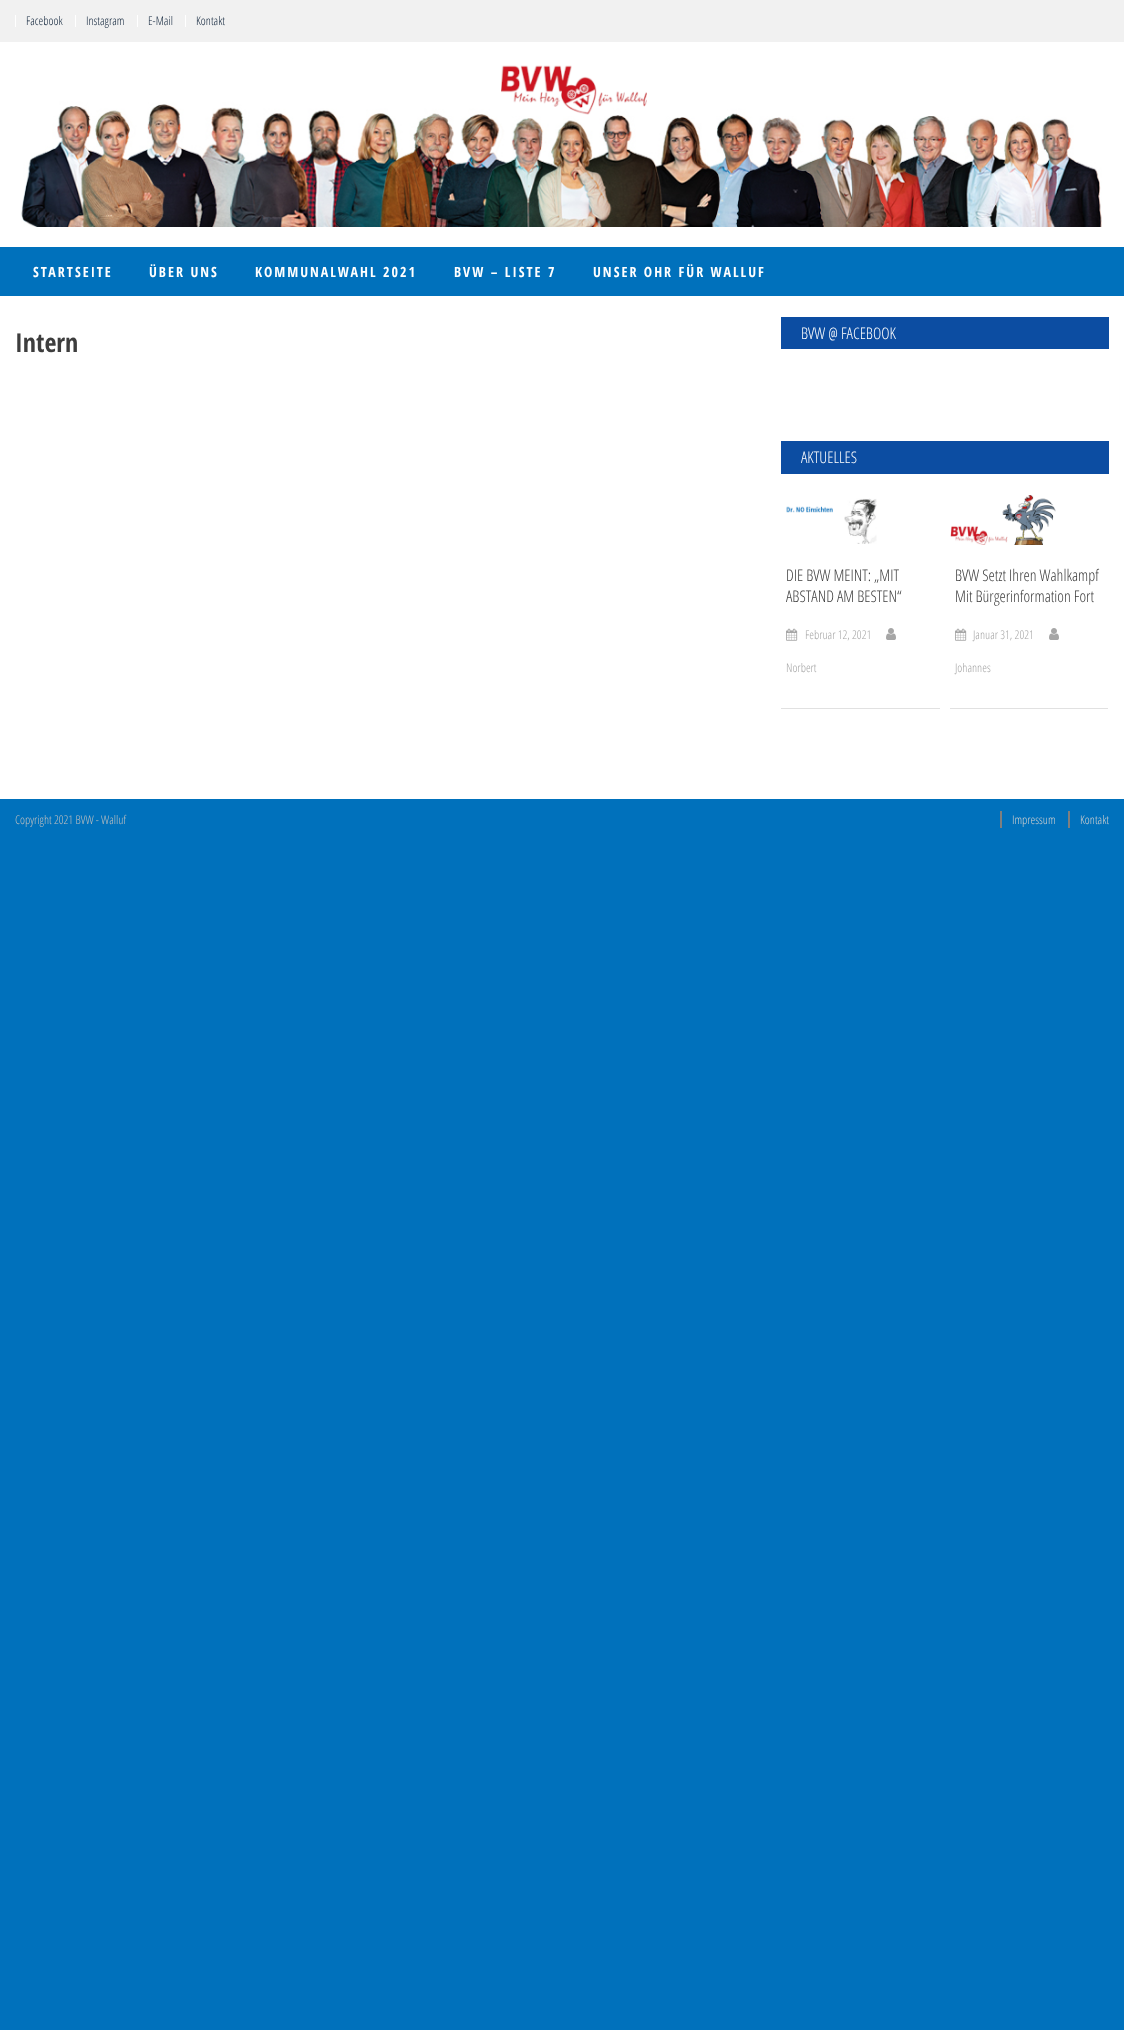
<!DOCTYPE html>
<meta charset="utf-8">
<style>body { margin: 0 } canvas { display: block }</style>
<canvas id="canvas" width="1124" height="2030"></canvas>
<img id="img1" src="img_01.png" hidden>
<img id="img2" src="img_02.png" hidden>
<img id="img3" src="img_03.png" hidden>
<img id="img4" src="img_04.png" hidden>
<img id="img5" src="img_05.png" hidden>
<script>
window.onload = function () {
	const canvas = document.getElementById("canvas");
	const ctx = canvas.getContext("2d");
	ctx.miterLimit = 4;
	ctx.fontKerning = "normal";
	function txt(s, x, y) {
		ctx.fillText(s, x, y);
	}
	function fill(x, y, w, h) {
		ctx.fillRect(x, y, w, h);
	}
	function img(id, x, y, w, h) {
		ctx.drawImage(document.getElementById(id), x, y, w, h);
	}

	ctx.fillStyle = "#0071BC";
	fill(0, 0, 1124, 2030);
	ctx.fillStyle = "#FFFFFF";
	fill(0, 42, 1124, 757);
	ctx.fillStyle = "#F1F1F1";
	fill(0, 0, 1124, 42);
	ctx.fillStyle = "#FFFFFF";
	fill(15, 15, 1, 12);
	fill(75, 15, 1, 12);
	fill(137, 15, 1, 12);
	fill(185, 15, 1, 12);
	img("img1", 21, 65, 1081, 162);
	ctx.fillStyle = "#0071BC";
	fill(0, 247, 1124, 49);
	ctx.fillStyle = "#0C4DA2";
	fill(781, 317, 328, 32);
	fill(781, 441, 328, 33);
	ctx.fillStyle = "#E1E1E1";
	fill(781, 708, 159, 1);
	img("img2", 786, 498, 91, 46);
	img("img3", 786, 628, 12, 13);
	img("img4", 886, 628, 10, 12);
	fill(950, 708, 158, 1);
	img("img5", 950, 495, 106, 50);
	img("img3", 955, 628, 12, 13);
	img("img4", 1049, 628, 10, 12);
	ctx.fillStyle = "#7F7F7F";
	fill(1000, 811, 2, 17);
	fill(1068, 811, 2, 17);
	ctx.font = "300 12px Open Sans Condensed";
	ctx.fillStyle = "#0F233A";
	txt("Facebook", 26, 25);
	txt("Instagram", 86, 25);
	txt("E-Mail", 148, 25);
	txt("Kontakt", 196, 25);
	ctx.letterSpacing = "2px";
	ctx.font = "bold 14px Open Sans Condensed";
	ctx.fillStyle = "#FFFFFF";
	txt("STARTSEITE", 33, 277);
	txt("ÜBER UNS", 149, 277);
	txt("KOMMUNALWAHL 2021", 255, 277);
	txt("BVW – LISTE 7", 454, 277);
	txt("UNSER OHR FÜR WALLUF", 593, 277);
	ctx.letterSpacing = "0px";
	ctx.font = "bold 26px Open Sans Condensed";
	ctx.fillStyle = "#3D3D3D";
	txt("Intern", 15, 352);
	ctx.font = "300 16px Open Sans Condensed";
	ctx.fillStyle = "#FFFFFF";
	txt("BVW @ FACEBOOK", 801, 339);
	txt("AKTUELLES", 801, 463);
	ctx.fillStyle = "#3D3D3D";
	txt("DIE BVW MEINT: „MIT", 786, 581);
	txt("ABSTAND AM BESTEN“", 786, 602);
	ctx.font = "300 12px Open Sans Condensed";
	ctx.fillStyle = "#A6A6A6";
	txt("Februar 12, 2021", 805, 639);
	txt("Norbert", 786, 672);
	ctx.font = "300 16px Open Sans Condensed";
	ctx.fillStyle = "#3D3D3D";
	txt("BVW Setzt Ihren Wahlkampf", 955, 581);
	txt("Mit Bürgerinformation Fort", 955, 602);
	ctx.font = "300 12px Open Sans Condensed";
	ctx.fillStyle = "#A6A6A6";
	txt("Januar 31, 2021", 973, 639);
	txt("Johannes", 955, 672);
	ctx.fillStyle = "#BFBFBF";
	txt("Copyright 2021 BVW - Walluf", 15, 824);
	ctx.fillStyle = "#CFCFCF";
	txt("Impressum", 1012, 824);
	txt("Kontakt", 1080, 824);
};
</script>
